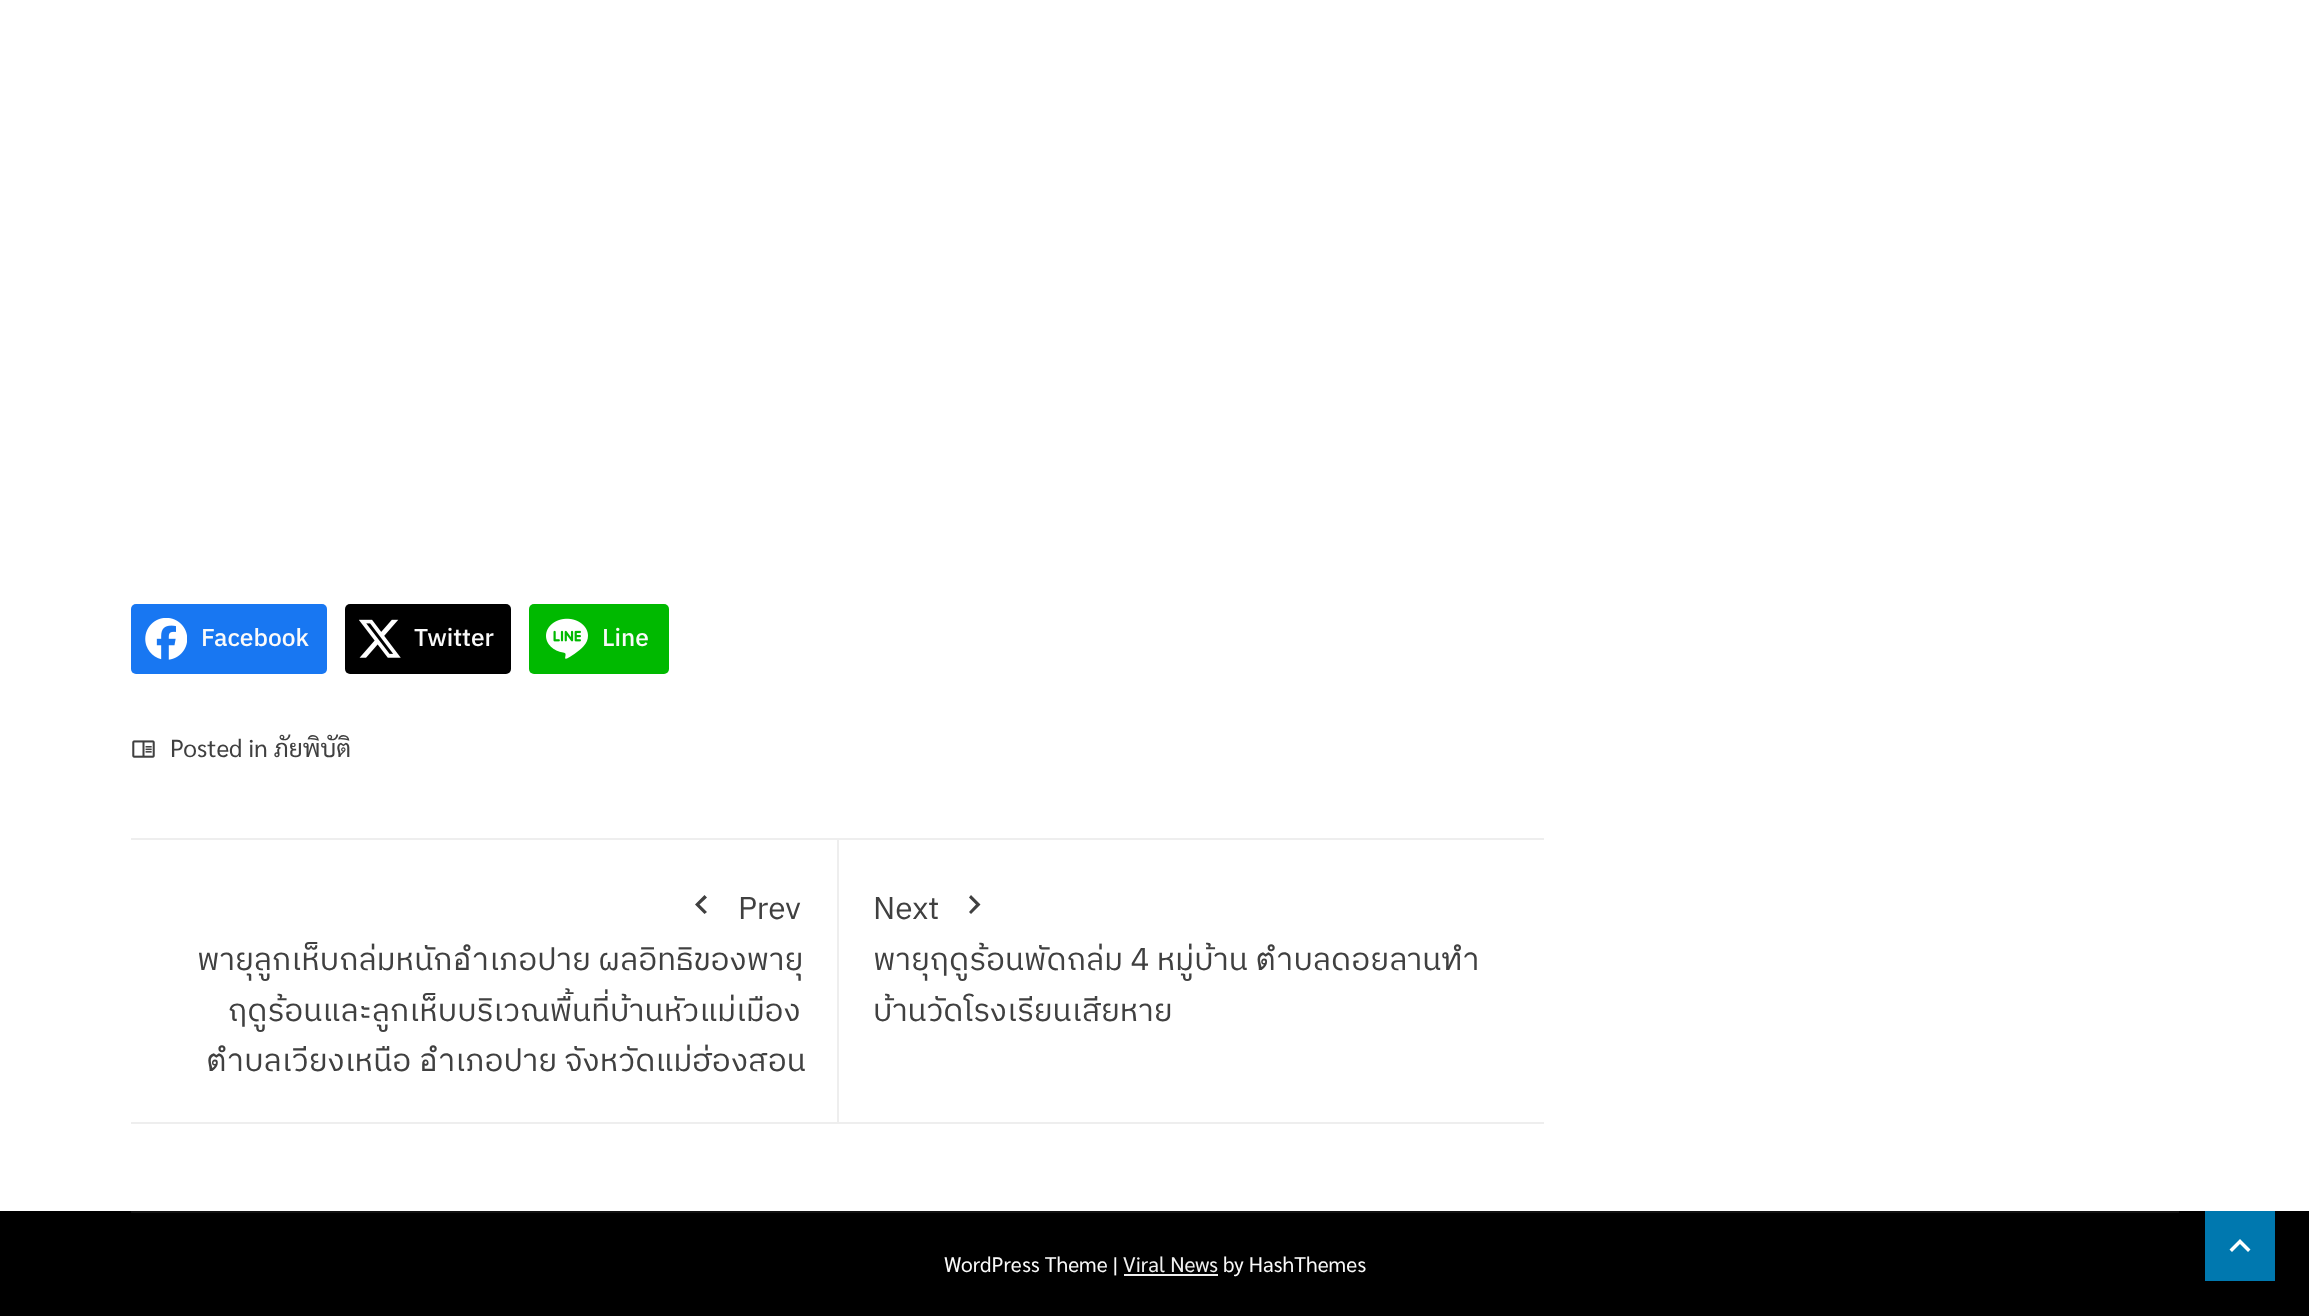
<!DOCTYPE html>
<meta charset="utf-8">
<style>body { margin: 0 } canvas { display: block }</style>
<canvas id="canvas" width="2309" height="1316"></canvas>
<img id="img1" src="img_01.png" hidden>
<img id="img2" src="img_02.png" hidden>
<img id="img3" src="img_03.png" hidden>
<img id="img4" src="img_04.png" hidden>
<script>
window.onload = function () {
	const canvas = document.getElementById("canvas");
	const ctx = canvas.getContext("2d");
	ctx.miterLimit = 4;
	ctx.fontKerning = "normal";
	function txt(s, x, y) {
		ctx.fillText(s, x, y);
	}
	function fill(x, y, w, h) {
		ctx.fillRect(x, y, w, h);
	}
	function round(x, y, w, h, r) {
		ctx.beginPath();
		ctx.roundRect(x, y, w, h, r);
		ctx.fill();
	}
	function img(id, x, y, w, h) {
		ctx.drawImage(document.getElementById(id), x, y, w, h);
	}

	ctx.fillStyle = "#FFFFFF";
	fill(0, 0, 2309, 1316);
	ctx.fillStyle = "#1877F2";
	round(131, 604, 196, 70, 5);
	img("img1", 145, 618, 42, 42);
	ctx.fillStyle = "#000000";
	round(345, 604, 166, 70, 5);
	img("img2", 359, 619, 42, 39);
	ctx.fillStyle = "#00B900";
	round(529, 604, 140, 70, 5);
	img("img3", 546, 618, 42, 41);
	img("img4", 132, 740, 23, 18);
	ctx.fillStyle = "#EEEEEE";
	fill(131, 838, 1413, 2);
	fill(131, 1122, 1413, 2);
	fill(837, 840, 2, 282);
	ctx.fillStyle = "#404040";
	ctx.beginPath();
	ctx.moveTo(707, 912);
	ctx.lineTo(699.5, 904.5);
	ctx.lineTo(707, 897.5);
	ctx.lineTo(704.5, 895);
	ctx.lineTo(695, 904.5);
	ctx.lineTo(704.5, 914);
	ctx.closePath();
	ctx.fill();
	ctx.beginPath();
	ctx.moveTo(969, 912);
	ctx.lineTo(976, 904.5);
	ctx.lineTo(969, 897.5);
	ctx.lineTo(971, 895);
	ctx.lineTo(980.5, 904.5);
	ctx.lineTo(971, 914);
	ctx.closePath();
	ctx.fill();
	ctx.fillStyle = "#000000";
	fill(0, 1211, 2309, 105);
	ctx.fillStyle = "#111111";
	fill(131, 1211, 2048, 2);
	ctx.fillStyle = "#F0F0F0";
	fill(1124, 1274, 94, 2);
	ctx.fillStyle = "#0078AF";
	fill(2205, 1211, 70, 70);
	ctx.fillStyle = "#FFFFFF";
	ctx.beginPath();
	ctx.moveTo(2232, 1252);
	ctx.lineTo(2240, 1244);
	ctx.lineTo(2248, 1252);
	ctx.lineTo(2250.5, 1249.5);
	ctx.lineTo(2240, 1239);
	ctx.lineTo(2229.5, 1249.5);
	ctx.closePath();
	ctx.fill();
	ctx.font = "500 24.5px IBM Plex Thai";
	ctx.fillStyle = "#FAFAFA";
	txt("Facebook", 201, 646);
	txt("Twitter", 414, 646);
	txt("Line", 602, 646);
	ctx.font = "24.5px Sarabun";
	ctx.fillStyle = "#404040";
	txt("Posted in ภัยพิบัติ", 170, 757);
	ctx.font = "31.5px IBM Plex Thai";
	txt("Prev", 738, 919);
	txt("พายุลูกเห็บถล่มหนักอำเภอปาย ผลอิทธิของพายุ", 197, 970);
	txt("ฤดูร้อนและลูกเห็บบริเวณพื้นที่บ้านหัวแม่เมือง", 228, 1021);
	txt("ตำบลเวียงเหนือ อำเภอปาย จังหวัดแม่ฮ่องสอน", 206, 1071);
	txt("Next", 873, 919);
	txt("พายุฤดูร้อนพัดถล่ม 4 หมู่บ้าน ตำบลดอยลานทำ", 873, 970);
	txt("บ้านวัดโรงเรียนเสียหาย", 873, 1021);
	ctx.font = "21px Sarabun";
	ctx.fillStyle = "#FAFAFA";
	txt("WordPress Theme |", 944, 1272);
	ctx.fillStyle = "#F0F0F0";
	txt("Viral News", 1123, 1272);
	ctx.fillStyle = "#FAFAFA";
	txt("by HashThemes", 1223, 1272);
};
</script>
